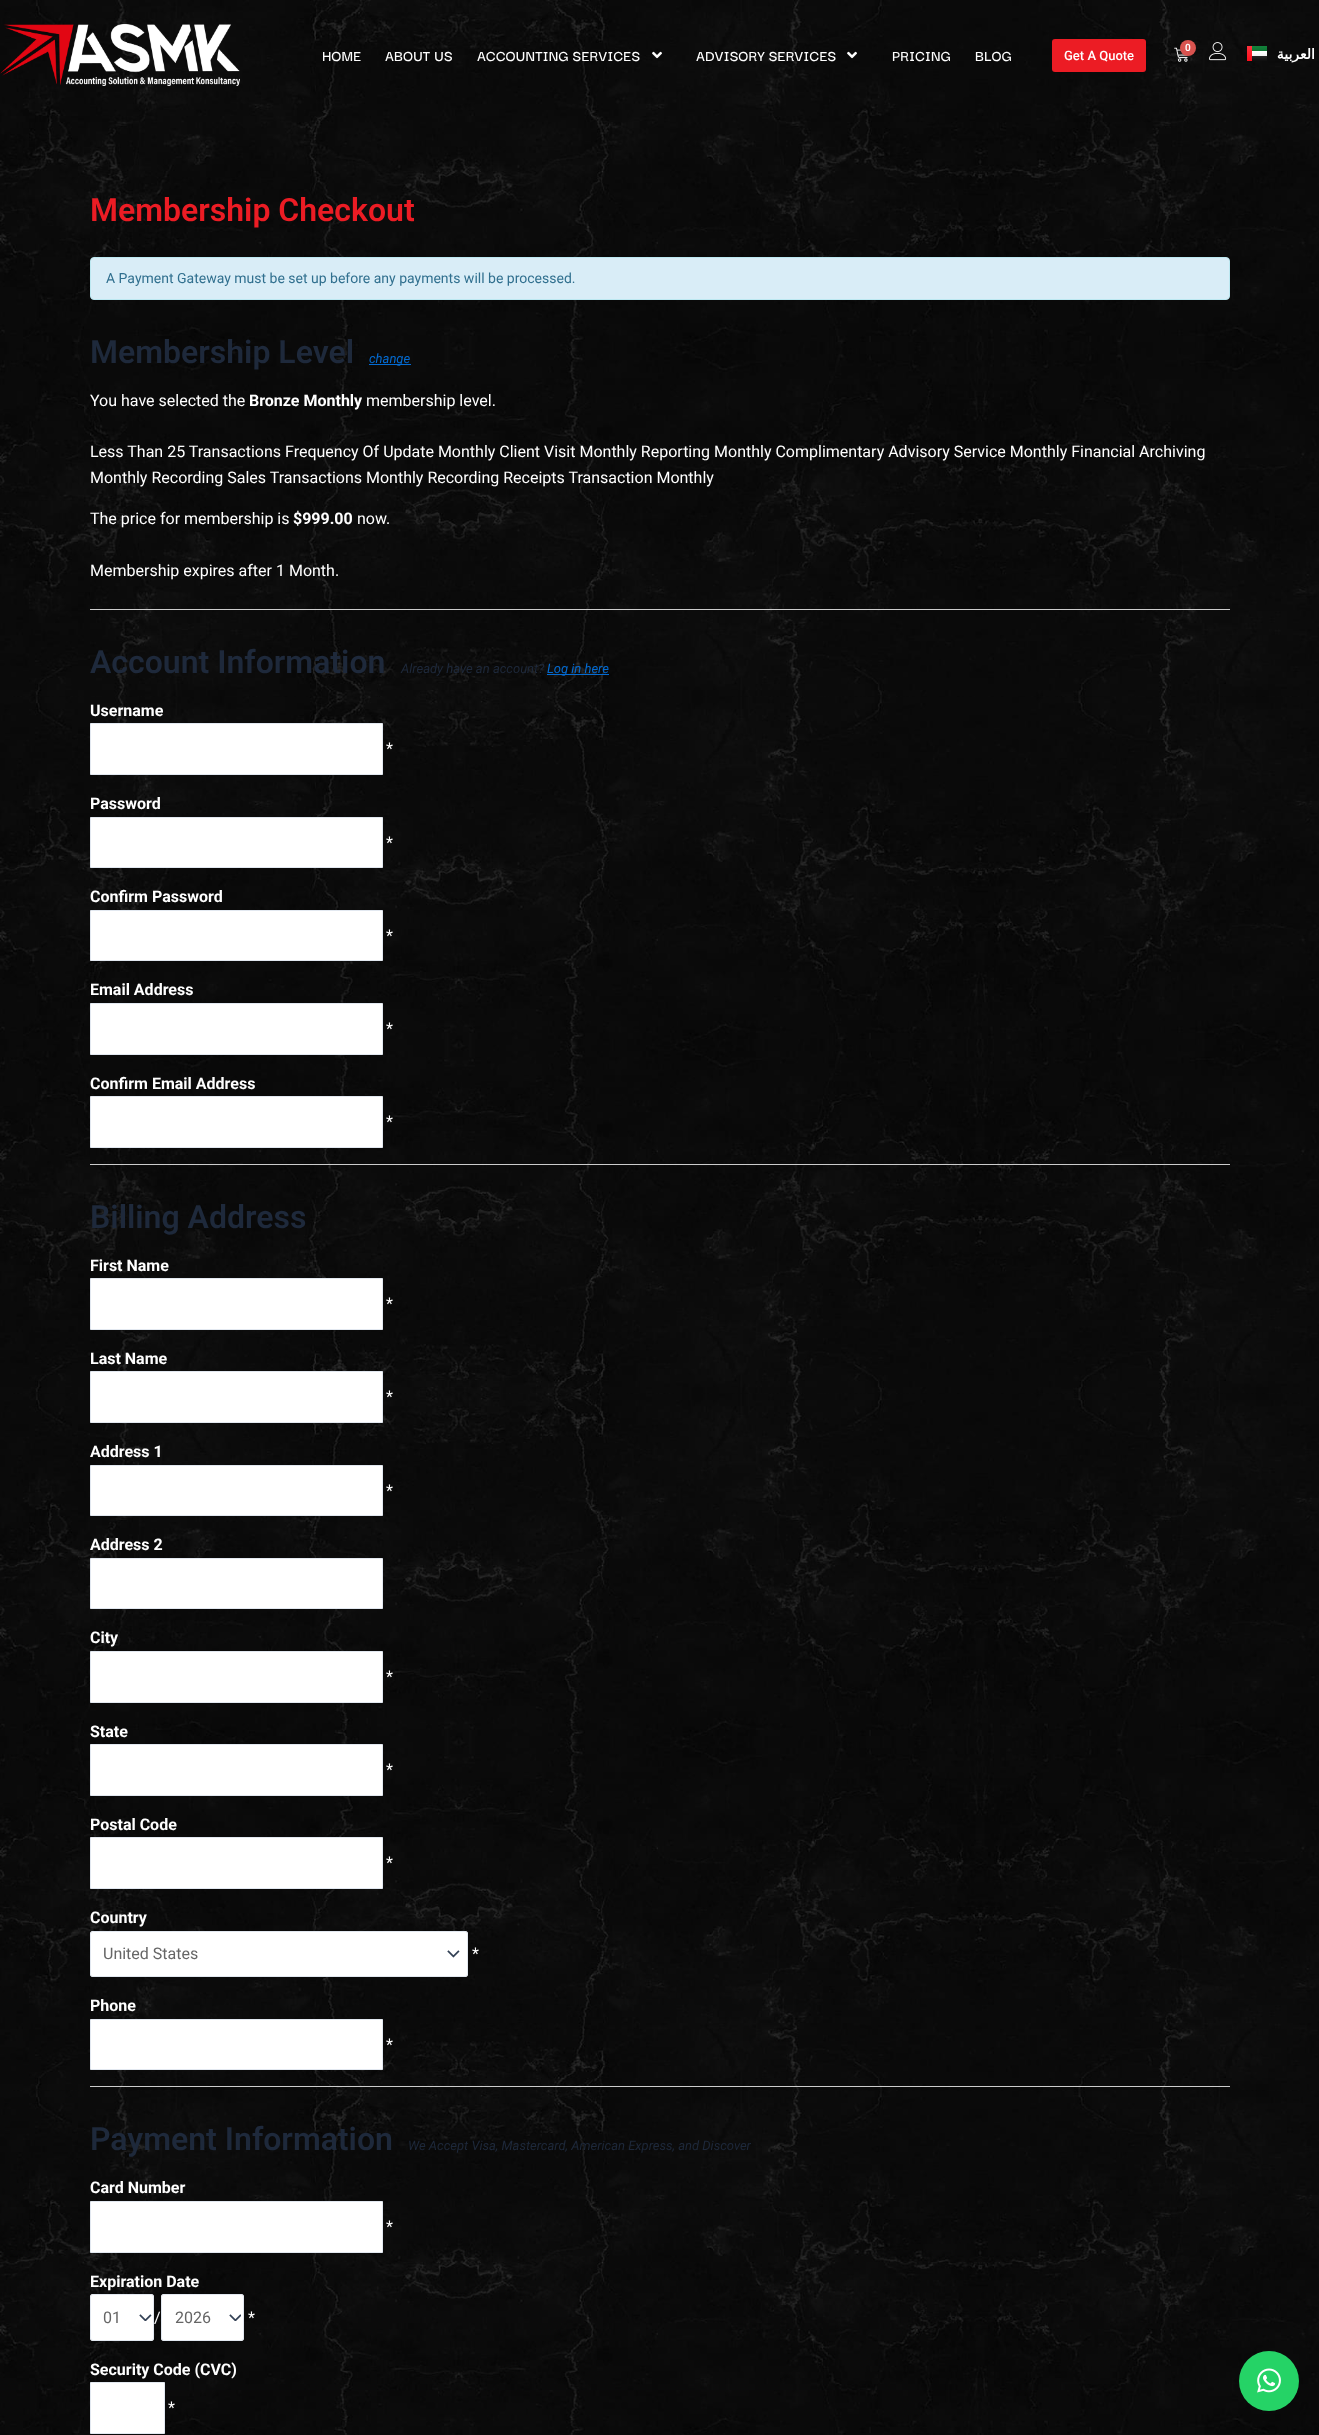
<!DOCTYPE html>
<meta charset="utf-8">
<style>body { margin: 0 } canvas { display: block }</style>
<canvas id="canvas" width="1319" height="2435"></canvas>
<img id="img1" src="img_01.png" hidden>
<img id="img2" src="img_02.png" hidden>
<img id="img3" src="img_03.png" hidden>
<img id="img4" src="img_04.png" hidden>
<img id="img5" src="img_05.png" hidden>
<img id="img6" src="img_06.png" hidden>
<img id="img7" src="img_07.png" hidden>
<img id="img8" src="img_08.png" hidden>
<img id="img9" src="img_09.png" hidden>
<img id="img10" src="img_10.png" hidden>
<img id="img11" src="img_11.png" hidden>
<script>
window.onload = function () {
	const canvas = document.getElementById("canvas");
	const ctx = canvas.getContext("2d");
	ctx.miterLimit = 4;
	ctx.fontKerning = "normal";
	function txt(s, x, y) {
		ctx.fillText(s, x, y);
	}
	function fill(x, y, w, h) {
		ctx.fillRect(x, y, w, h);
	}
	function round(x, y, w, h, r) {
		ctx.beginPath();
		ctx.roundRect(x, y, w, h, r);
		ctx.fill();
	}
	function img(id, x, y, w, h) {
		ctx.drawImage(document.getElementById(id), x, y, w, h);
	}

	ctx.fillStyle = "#FFFFFF";
	fill(0, 0, 1319, 2435);
	img("img1", 0, 0, 1319, 2435);
	img("img2", 0, 24, 240, 62);
	img("img3", 652, 51, 10, 8);
	img("img4", 847, 51, 10, 8);
	ctx.fillStyle = "#EC1C24";
	round(1052, 39, 94, 33, 3);
	img("img5", 1174, 47, 14, 15);
	ctx.fillStyle = "#D9534F";
	ctx.beginPath();
	ctx.arc(1188, 48, 8, 0, Math.PI * 2);
	ctx.fill();
	img("img6", 1209, 42, 18, 19);
	img("img7", 1247, 46, 20, 15);
	ctx.fillStyle = "#D9EDF7";
	ctx.beginPath();
	ctx.roundRect(90.5, 257.5, 1139, 42, 3.5);
	ctx.fill();
	ctx.strokeStyle = "#BCE8F1";
	ctx.stroke();
	ctx.fillStyle = "#046BD2";
	fill(369, 364, 42, 1);
	ctx.fillStyle = "#CCCCCC";
	fill(90, 609, 1140, 1);
	ctx.fillStyle = "#046BD2";
	fill(547, 674, 62, 1);
	ctx.fillStyle = "#FFFFFF";
	ctx.beginPath();
	ctx.rect(90.5, 723.5, 292, 51);
	ctx.fill();
	ctx.strokeStyle = "#E2E8F0";
	ctx.stroke();
	ctx.beginPath();
	ctx.rect(90.5, 817.5, 292, 50);
	ctx.fill();
	ctx.stroke();
	ctx.beginPath();
	ctx.rect(90.5, 910.5, 292, 50);
	ctx.fill();
	ctx.stroke();
	ctx.beginPath();
	ctx.rect(90.5, 1003.5, 292, 51);
	ctx.fill();
	ctx.stroke();
	ctx.beginPath();
	ctx.rect(90.5, 1096.5, 292, 51);
	ctx.fill();
	ctx.stroke();
	ctx.fillStyle = "#CCCCCC";
	fill(90, 1164, 1140, 1);
	ctx.fillStyle = "#FFFFFF";
	ctx.beginPath();
	ctx.rect(90.5, 1278.5, 292, 51);
	ctx.fill();
	ctx.stroke();
	ctx.beginPath();
	ctx.rect(90.5, 1371.5, 292, 51);
	ctx.fill();
	ctx.stroke();
	ctx.beginPath();
	ctx.rect(90.5, 1465.5, 292, 50);
	ctx.fill();
	ctx.stroke();
	ctx.beginPath();
	ctx.rect(90.5, 1558.5, 292, 50);
	ctx.fill();
	ctx.stroke();
	ctx.beginPath();
	ctx.rect(90.5, 1651.5, 292, 51);
	ctx.fill();
	ctx.stroke();
	ctx.beginPath();
	ctx.rect(90.5, 1744.5, 292, 51);
	ctx.fill();
	ctx.stroke();
	ctx.beginPath();
	ctx.rect(90.5, 1837.5, 292, 51);
	ctx.fill();
	ctx.stroke();
	round(90, 1931, 378, 46, 3);
	img("img8", 447, 1950, 13, 8);
	ctx.beginPath();
	ctx.roundRect(90.5, 1931.5, 377, 45, 2.5);
	ctx.stroke();
	ctx.beginPath();
	ctx.rect(90.5, 2019.5, 292, 50);
	ctx.fill();
	ctx.stroke();
	ctx.fillStyle = "#CCCCCC";
	fill(90, 2086, 1140, 1);
	ctx.fillStyle = "#FFFFFF";
	ctx.beginPath();
	ctx.rect(90.5, 2201.5, 292, 51);
	ctx.fill();
	ctx.stroke();
	round(90, 2294, 64, 47, 3);
	img("img9", 139, 2314, 13, 7);
	ctx.beginPath();
	ctx.roundRect(90.5, 2294.5, 63, 46, 2.5);
	ctx.stroke();
	round(161, 2294, 83, 47, 3);
	img("img10", 229, 2314, 12, 7);
	ctx.beginPath();
	ctx.roundRect(161.5, 2294.5, 82, 46, 2.5);
	ctx.stroke();
	ctx.beginPath();
	ctx.rect(90.5, 2382.5, 74, 51);
	ctx.fill();
	ctx.stroke();
	ctx.fillStyle = "#25D366";
	ctx.beginPath();
	ctx.arc(1269, 2381, 30, 0, Math.PI * 2);
	ctx.fill();
	img("img11", 1257, 2368, 24, 25);
	ctx.letterSpacing = "0.25px";
	ctx.font = "600 16px Darker Grotesque";
	ctx.fillStyle = "#FFFFFF";
	txt("HOME", 322, 61);
	txt("ABOUT US", 385, 61);
	txt("ACCOUNTING SERVICES", 477, 61);
	txt("ADVISORY SERVICES", 696, 61);
	txt("PRICING", 892, 61);
	txt("BLOG", 975, 61);
	ctx.letterSpacing = "0px";
	ctx.font = "500 13px Roboto";
	txt("Get A Quote", 1064, 60);
	ctx.font = "600 10px Roboto";
	txt("0", 1185, 51);
	ctx.direction = "rtl";
	ctx.font = "bold 14px DejaVu Sans";
	txt("العربية", 1315, 59);
	ctx.direction = "ltr";
	ctx.font = "600 32px Roboto";
	ctx.fillStyle = "#EC1C24";
	txt("Membership Checkout", 90, 221);
	ctx.font = "14px Roboto";
	ctx.fillStyle = "#31708F";
	txt("A Payment Gateway must be set up before any payments will be processed.", 106, 283);
	ctx.font = "600 32px Roboto";
	ctx.fillStyle = "#1E293B";
	txt("Membership Level", 90, 363);
	ctx.font = "italic 13px Roboto";
	ctx.fillStyle = "#046BD2";
	txt("change", 369, 363);
	ctx.font = "16px Roboto";
	ctx.fillStyle = "#FFFFFF";
	txt("You have selected the", 90, 406);
	ctx.font = "bold 16px Roboto";
	txt("Bronze Monthly", 249, 406);
	ctx.font = "16px Roboto";
	txt("membership level.", 366, 406);
	txt("Less Than 25 Transactions Frequency Of Update Monthly Client Visit Monthly Reporting Monthly Complimentary Advisory Service Monthly Financial Archiving", 90, 457);
	txt("Monthly Recording Sales Transactions Monthly Recording Receipts Transaction Monthly", 90, 483);
	txt("The price for membership is", 90, 524);
	ctx.font = "bold 16px Roboto";
	txt("$999.00", 293, 524);
	ctx.font = "16px Roboto";
	txt("now.", 357, 524);
	txt("Membership expires after 1 Month.", 90, 576);
	ctx.font = "600 32px Roboto";
	ctx.fillStyle = "#1E293B";
	txt("Account Information", 90, 673);
	ctx.font = "italic 13px Roboto";
	txt("Already have an account?", 401, 673);
	ctx.fillStyle = "#046BD2";
	txt("Log in here", 547, 673);
	ctx.font = "bold 16px Roboto";
	ctx.fillStyle = "#FFFFFF";
	txt("Username", 90, 716);
	ctx.font = "16px Roboto";
	txt("*", 386, 754);
	ctx.font = "bold 16px Roboto";
	txt("Password", 90, 809);
	ctx.font = "16px Roboto";
	txt("*", 386, 848);
	ctx.font = "bold 16px Roboto";
	txt("Confirm Password", 90, 902);
	ctx.font = "16px Roboto";
	txt("*", 386, 941);
	ctx.font = "bold 16px Roboto";
	txt("Email Address", 90, 995);
	ctx.font = "16px Roboto";
	txt("*", 386, 1034);
	ctx.font = "bold 16px Roboto";
	txt("Confirm Email Address", 90, 1089);
	ctx.font = "16px Roboto";
	txt("*", 386, 1127);
	ctx.font = "600 32px Roboto";
	ctx.fillStyle = "#1E293B";
	txt("Billing Address", 90, 1228);
	ctx.font = "bold 16px Roboto";
	ctx.fillStyle = "#FFFFFF";
	txt("First Name", 90, 1271);
	ctx.font = "16px Roboto";
	txt("*", 386, 1309);
	ctx.font = "bold 16px Roboto";
	txt("Last Name", 90, 1364);
	ctx.font = "16px Roboto";
	txt("*", 386, 1402);
	ctx.font = "bold 16px Roboto";
	txt("Address 1", 90, 1457);
	ctx.font = "16px Roboto";
	txt("*", 386, 1496);
	ctx.font = "bold 16px Roboto";
	txt("Address 2", 90, 1550);
	txt("City", 90, 1643);
	ctx.font = "16px Roboto";
	txt("*", 386, 1682);
	ctx.font = "bold 16px Roboto";
	txt("State", 90, 1737);
	ctx.font = "16px Roboto";
	txt("*", 386, 1775);
	ctx.font = "bold 16px Roboto";
	txt("Postal Code", 90, 1830);
	ctx.font = "16px Roboto";
	txt("*", 386, 1868);
	ctx.font = "bold 16px Roboto";
	txt("Country", 90, 1923);
	ctx.font = "16px Roboto";
	ctx.fillStyle = "#666666";
	txt("United States", 103, 1959);
	ctx.fillStyle = "#FFFFFF";
	txt("*", 472, 1959);
	ctx.font = "bold 16px Roboto";
	txt("Phone", 90, 2011);
	ctx.font = "16px Roboto";
	txt("*", 386, 2050);
	ctx.font = "600 32px Roboto";
	ctx.fillStyle = "#1E293B";
	txt("Payment Information", 90, 2150);
	ctx.font = "italic 13px Roboto";
	txt("We Accept Visa, Mastercard, American Express, and Discover", 408, 2150);
	ctx.font = "bold 16px Roboto";
	ctx.fillStyle = "#FFFFFF";
	txt("Card Number", 90, 2193);
	ctx.font = "16px Roboto";
	txt("*", 386, 2232);
	ctx.font = "bold 16px Roboto";
	txt("Expiration Date", 90, 2287);
	ctx.font = "16px Roboto";
	ctx.fillStyle = "#666666";
	txt("01", 103, 2323);
	ctx.fillStyle = "#FFFFFF";
	txt("/", 154, 2323);
	ctx.fillStyle = "#666666";
	txt("2026", 175, 2323);
	ctx.fillStyle = "#FFFFFF";
	txt("*", 248, 2323);
	ctx.font = "bold 16px Roboto";
	txt("Security Code (CVC)", 90, 2375);
	ctx.font = "16px Roboto";
	txt("*", 168, 2413);
};
</script>
